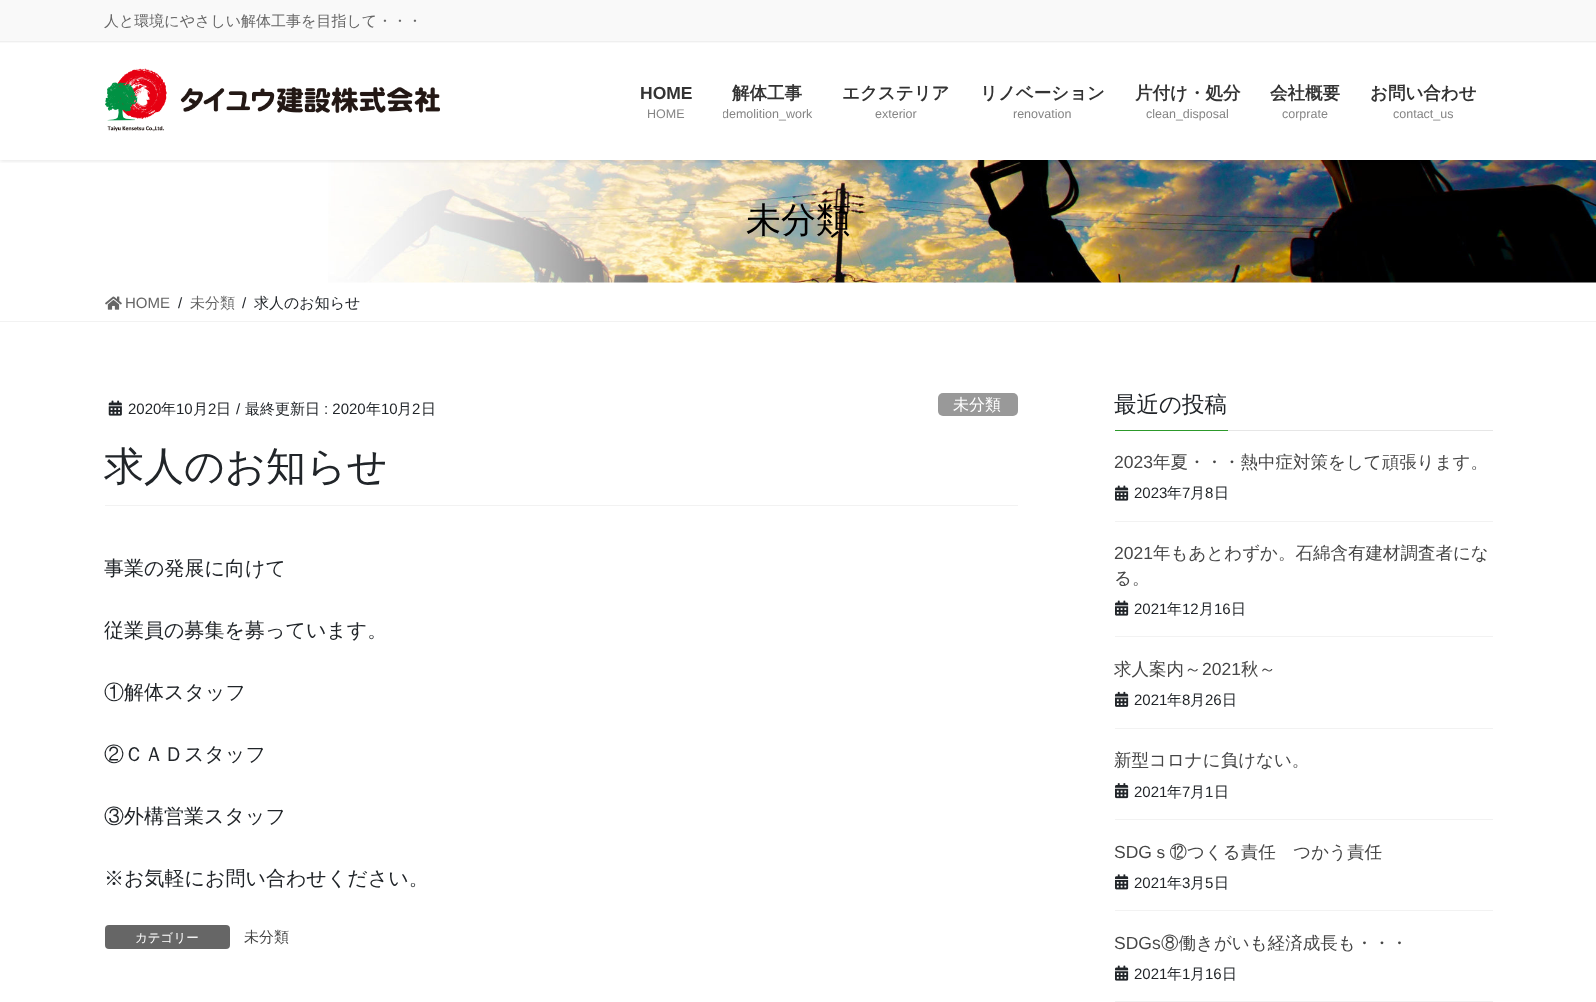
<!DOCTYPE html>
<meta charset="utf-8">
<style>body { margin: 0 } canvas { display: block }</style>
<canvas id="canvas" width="1596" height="1002"></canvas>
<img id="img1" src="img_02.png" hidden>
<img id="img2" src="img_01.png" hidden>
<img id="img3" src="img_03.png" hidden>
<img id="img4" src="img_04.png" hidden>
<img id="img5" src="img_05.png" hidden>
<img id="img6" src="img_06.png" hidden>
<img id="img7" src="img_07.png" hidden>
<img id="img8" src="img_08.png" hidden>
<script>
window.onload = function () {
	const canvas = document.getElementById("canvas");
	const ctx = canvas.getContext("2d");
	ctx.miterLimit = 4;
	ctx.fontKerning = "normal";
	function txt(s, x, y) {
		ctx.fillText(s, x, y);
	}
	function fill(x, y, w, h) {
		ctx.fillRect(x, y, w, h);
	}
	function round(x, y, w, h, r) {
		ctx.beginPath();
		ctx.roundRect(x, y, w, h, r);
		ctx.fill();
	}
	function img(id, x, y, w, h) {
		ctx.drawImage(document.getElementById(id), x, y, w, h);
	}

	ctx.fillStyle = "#FFFFFF";
	fill(0, 0, 1596, 1002);
	img("img1", 328, 160, 1268, 123);
	ctx.save();
	ctx.beginPath();
	ctx.rect(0, 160, 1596, 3);
	ctx.clip();
	ctx.fillStyle = "rgba(0, 0, 0, 0.1)";
	ctx.filter = "blur(2px)";
	ctx.beginPath();
	ctx.rect(0, -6, 1596, 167);
	ctx.fill();
	ctx.filter = "none";
	ctx.restore();
	ctx.fillStyle = "#F9F9F9";
	fill(0, 0, 1596, 43);
	ctx.fillStyle = "#EFEFEF";
	fill(0, 41, 1596, 1);
	img("img2", 105, 68, 335, 64);
	ctx.fillStyle = "#F2F2F2";
	fill(0, 321, 1596, 1);
	img("img3", 105, 296, 17, 14);
	fill(105, 505, 913, 1);
	img("img4", 108, 400, 14, 16);
	ctx.fillStyle = "#999999";
	round(938, 393, 80, 23, 5);
	ctx.fillStyle = "#666666";
	round(105, 925, 125, 24, 4);
	ctx.fillStyle = "#E6E6E6";
	fill(1228, 430, 265, 1);
	ctx.fillStyle = "#2C992A";
	fill(1115, 430, 113, 1);
	ctx.fillStyle = "#F2F2F2";
	fill(1115, 521, 378, 1);
	img("img5", 1115, 485, 14, 16);
	fill(1115, 636, 378, 1);
	img("img5", 1115, 600, 14, 16);
	fill(1115, 728, 378, 1);
	img("img6", 1115, 691, 14, 16);
	fill(1115, 819, 378, 1);
	img("img7", 1115, 783, 14, 16);
	fill(1115, 910, 378, 1);
	img("img8", 1115, 874, 14, 16);
	fill(1115, 1001, 378, 1);
	img("img5", 1115, 965, 14, 16);
	ctx.font = "500 15px WenQuanYi Zen Hei";
	ctx.fillStyle = "#666666";
	txt("人と環境にやさしい解体工事を目指して・・・", 104, 26);
	ctx.font = "bold 17.5px Liberation Sans";
	ctx.fillStyle = "#333333";
	txt("HOME", 640, 99);
	ctx.font = "12.5px Liberation Sans";
	ctx.fillStyle = "#858585";
	txt("HOME", 647, 118);
	ctx.font = "bold 17.5px WenQuanYi Zen Hei";
	ctx.fillStyle = "#333333";
	txt("解体工事", 732, 99);
	ctx.save();
	ctx.beginPath();
	ctx.rect(723, 106, 90, 18);
	ctx.clip();
	ctx.font = "12.5px Liberation Sans";
	ctx.fillStyle = "#858585";
	txt("demolition_work", 722, 118);
	ctx.restore();
	txt("エクステリア", 842, 99);
	ctx.font = "12.5px Liberation Sans";
	ctx.fillStyle = "#858585";
	txt("exterior", 875, 118);
	ctx.font = "bold 17.5px WenQuanYi Zen Hei";
	ctx.fillStyle = "#333333";
	txt("リノベーション", 980, 99);
	ctx.font = "12.5px Liberation Sans";
	ctx.fillStyle = "#858585";
	txt("renovation", 1013, 118);
	ctx.font = "bold 17.5px WenQuanYi Zen Hei";
	ctx.fillStyle = "#333333";
	txt("片付け・処分", 1135, 99);
	ctx.font = "12.5px Liberation Sans";
	ctx.fillStyle = "#858585";
	txt("clean_disposal", 1146, 118);
	ctx.font = "bold 17.5px WenQuanYi Zen Hei";
	ctx.fillStyle = "#333333";
	txt("会社概要", 1270, 99);
	ctx.font = "12.5px Liberation Sans";
	ctx.fillStyle = "#858585";
	txt("corprate", 1282, 118);
	ctx.font = "bold 17.5px WenQuanYi Zen Hei";
	ctx.fillStyle = "#333333";
	txt("お問い合わせ", 1370, 99);
	ctx.font = "12.5px Liberation Sans";
	ctx.fillStyle = "#858585";
	txt("contact_us", 1393, 118);
	ctx.font = "500 35px WenQuanYi Zen Hei";
	ctx.fillStyle = "#000000";
	txt("未分類", 746, 232);
	ctx.font = "15px Liberation Sans";
	ctx.fillStyle = "#666666";
	txt("HOME", 125, 308);
	ctx.fillStyle = "#212529";
	txt("/", 178, 308);
	ctx.font = "500 15px WenQuanYi Zen Hei";
	ctx.fillStyle = "#666666";
	txt("未分類", 190, 308);
	ctx.font = "15px Liberation Sans";
	ctx.fillStyle = "#212529";
	txt("/", 242, 308);
	ctx.font = "500 15px WenQuanYi Zen Hei";
	txt("求人のお知らせ", 254, 308);
	ctx.font = "15px Liberation Sans";
	txt("2020", 128, 414);
	ctx.font = "500 15px WenQuanYi Zen Hei";
	txt("年", 161, 414);
	ctx.font = "15px Liberation Sans";
	txt("10", 176, 414);
	ctx.font = "500 15px WenQuanYi Zen Hei";
	txt("月", 193, 414);
	ctx.font = "15px Liberation Sans";
	txt("2", 208, 414);
	ctx.font = "500 15px WenQuanYi Zen Hei";
	txt("日", 216, 414);
	ctx.font = "15px Liberation Sans";
	txt("/", 236, 414);
	ctx.font = "500 15px WenQuanYi Zen Hei";
	txt("最終更新日", 245, 414);
	ctx.font = "15px Liberation Sans";
	txt(": 2020", 324, 414);
	ctx.font = "500 15px WenQuanYi Zen Hei";
	txt("年", 366, 414);
	ctx.font = "15px Liberation Sans";
	txt("10", 381, 414);
	ctx.font = "500 15px WenQuanYi Zen Hei";
	txt("月", 397, 414);
	ctx.font = "15px Liberation Sans";
	txt("2", 412, 414);
	ctx.font = "500 15px WenQuanYi Zen Hei";
	txt("日", 421, 414);
	ctx.font = "500 16px WenQuanYi Zen Hei";
	ctx.fillStyle = "#FFFFFF";
	txt("未分類", 953, 410);
	ctx.font = "500 40px WenQuanYi Zen Hei";
	ctx.fillStyle = "#212529";
	txt("求人のお知らせ", 104, 480);
	ctx.font = "500 20px WenQuanYi Zen Hei";
	txt("事業の発展に向けて", 104, 575);
	txt("従業員の募集を募っています。", 104, 637);
	txt("①解体スタッフ", 104, 699);
	txt("②ＣＡＤスタッフ", 104, 761);
	txt("③外構営業スタッフ", 104, 823);
	txt("※お気軽にお問い合わせください。", 104, 885);
	ctx.font = "500 12.5px WenQuanYi Zen Hei";
	ctx.fillStyle = "#FFFFFF";
	txt("カテゴリー", 135, 942);
	ctx.font = "500 15px WenQuanYi Zen Hei";
	ctx.fillStyle = "#464646";
	txt("未分類", 244, 942);
	ctx.font = "500 22.5px WenQuanYi Zen Hei";
	ctx.fillStyle = "#212529";
	txt("最近の投稿", 1114, 412);
	ctx.font = "17.5px Liberation Sans";
	ctx.fillStyle = "#464646";
	txt("2023", 1114, 468);
	ctx.font = "500 17.5px WenQuanYi Zen Hei";
	txt("年夏・・・熱中症対策をして頑張ります。", 1153, 468);
	ctx.font = "15px Liberation Sans";
	ctx.fillStyle = "#212529";
	txt("2023", 1134, 498);
	ctx.font = "500 15px WenQuanYi Zen Hei";
	txt("年", 1167, 498);
	ctx.font = "15px Liberation Sans";
	txt("7", 1182, 498);
	ctx.font = "500 15px WenQuanYi Zen Hei";
	txt("月", 1190, 498);
	ctx.font = "15px Liberation Sans";
	txt("8", 1205, 498);
	ctx.font = "500 15px WenQuanYi Zen Hei";
	txt("日", 1214, 498);
	ctx.font = "17.5px Liberation Sans";
	ctx.fillStyle = "#464646";
	txt("2021", 1114, 559);
	ctx.font = "500 17.5px WenQuanYi Zen Hei";
	txt("年もあとわずか。石綿含有建材調査者にな", 1153, 559);
	txt("る。", 1114, 584);
	ctx.font = "15px Liberation Sans";
	ctx.fillStyle = "#212529";
	txt("2021", 1134, 614);
	ctx.font = "500 15px WenQuanYi Zen Hei";
	txt("年", 1167, 614);
	ctx.font = "15px Liberation Sans";
	txt("12", 1182, 614);
	ctx.font = "500 15px WenQuanYi Zen Hei";
	txt("月", 1199, 614);
	ctx.font = "15px Liberation Sans";
	txt("16", 1214, 614);
	ctx.font = "500 15px WenQuanYi Zen Hei";
	txt("日", 1231, 614);
	ctx.font = "500 17.5px WenQuanYi Zen Hei";
	ctx.fillStyle = "#464646";
	txt("求人案内～", 1114, 675);
	ctx.font = "17.5px Liberation Sans";
	txt("2021", 1202, 675);
	ctx.font = "500 17.5px WenQuanYi Zen Hei";
	txt("秋～", 1241, 675);
	ctx.font = "15px Liberation Sans";
	ctx.fillStyle = "#212529";
	txt("2021", 1134, 705);
	ctx.font = "500 15px WenQuanYi Zen Hei";
	txt("年", 1167, 705);
	ctx.font = "15px Liberation Sans";
	txt("8", 1182, 705);
	ctx.font = "500 15px WenQuanYi Zen Hei";
	txt("月", 1190, 705);
	ctx.font = "15px Liberation Sans";
	txt("26", 1205, 705);
	ctx.font = "500 15px WenQuanYi Zen Hei";
	txt("日", 1222, 705);
	ctx.font = "500 17.5px WenQuanYi Zen Hei";
	ctx.fillStyle = "#464646";
	txt("新型コロナに負けない。", 1114, 766);
	ctx.font = "15px Liberation Sans";
	ctx.fillStyle = "#212529";
	txt("2021", 1134, 797);
	ctx.font = "500 15px WenQuanYi Zen Hei";
	txt("年", 1167, 797);
	ctx.font = "15px Liberation Sans";
	txt("7", 1182, 797);
	ctx.font = "500 15px WenQuanYi Zen Hei";
	txt("月", 1190, 797);
	ctx.font = "15px Liberation Sans";
	txt("1", 1205, 797);
	ctx.font = "500 15px WenQuanYi Zen Hei";
	txt("日", 1214, 797);
	ctx.font = "17.5px Liberation Sans";
	ctx.fillStyle = "#464646";
	txt("SDG", 1114, 858);
	ctx.font = "500 17.5px WenQuanYi Zen Hei";
	txt("ｓ⑫つくる責任　つかう責任", 1152, 858);
	ctx.font = "15px Liberation Sans";
	ctx.fillStyle = "#212529";
	txt("2021", 1134, 888);
	ctx.font = "500 15px WenQuanYi Zen Hei";
	txt("年", 1167, 888);
	ctx.font = "15px Liberation Sans";
	txt("3", 1182, 888);
	ctx.font = "500 15px WenQuanYi Zen Hei";
	txt("月", 1190, 888);
	ctx.font = "15px Liberation Sans";
	txt("5", 1205, 888);
	ctx.font = "500 15px WenQuanYi Zen Hei";
	txt("日", 1214, 888);
	ctx.font = "17.5px Liberation Sans";
	ctx.fillStyle = "#464646";
	txt("SDGs", 1114, 949);
	ctx.font = "500 17.5px WenQuanYi Zen Hei";
	txt("⑧働きがいも経済成長も・・・", 1161, 949);
	ctx.font = "15px Liberation Sans";
	ctx.fillStyle = "#212529";
	txt("2021", 1134, 979);
	ctx.font = "500 15px WenQuanYi Zen Hei";
	txt("年", 1167, 979);
	ctx.font = "15px Liberation Sans";
	txt("1", 1182, 979);
	ctx.font = "500 15px WenQuanYi Zen Hei";
	txt("月", 1190, 979);
	ctx.font = "15px Liberation Sans";
	txt("16", 1205, 979);
	ctx.font = "500 15px WenQuanYi Zen Hei";
	txt("日", 1222, 979);
};
</script>
